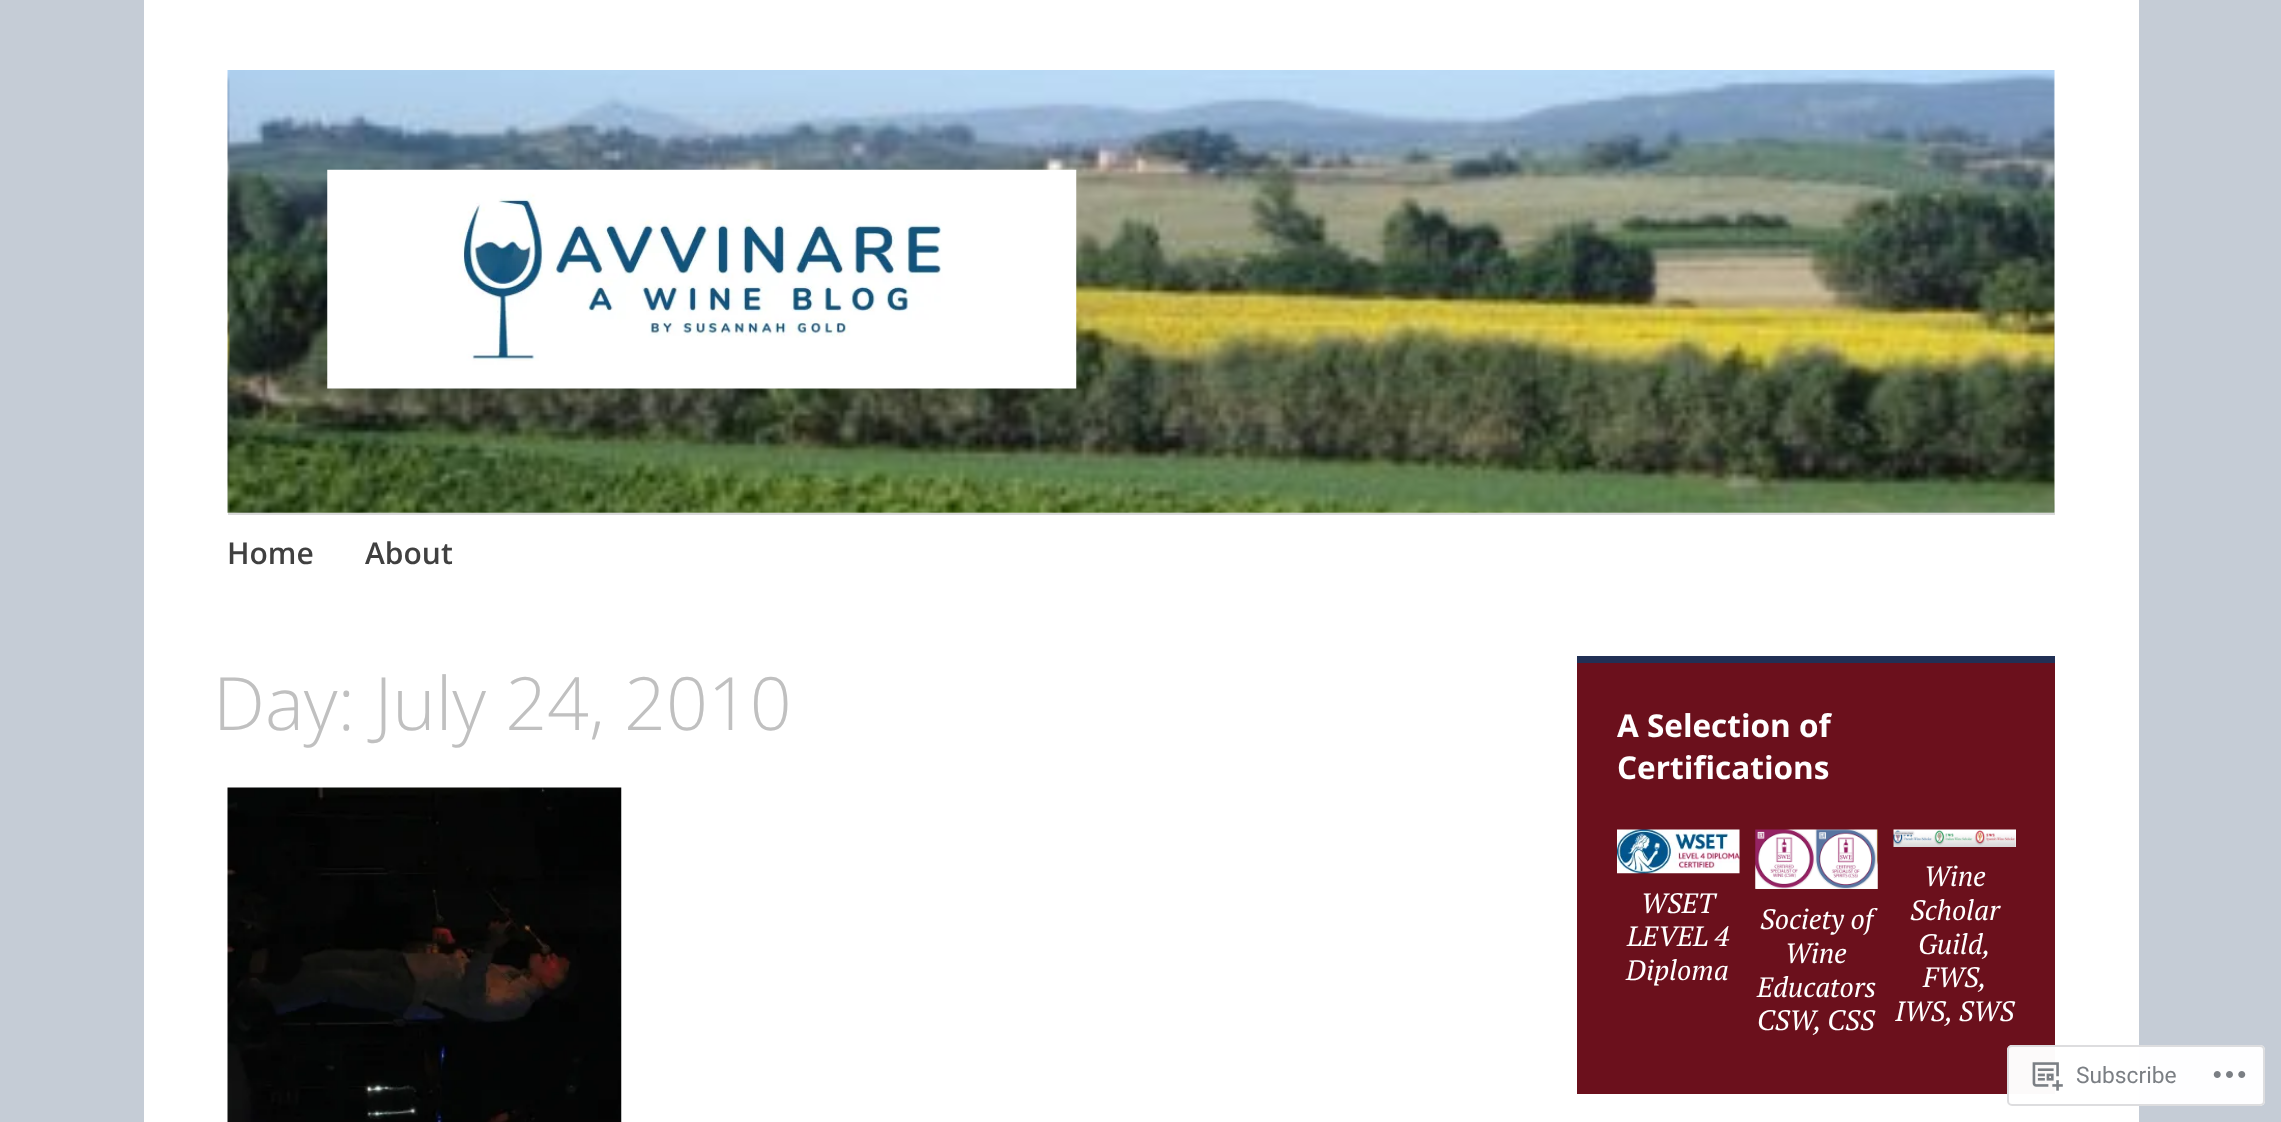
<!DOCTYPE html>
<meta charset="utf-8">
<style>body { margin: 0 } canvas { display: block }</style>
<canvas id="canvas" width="2281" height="1122"></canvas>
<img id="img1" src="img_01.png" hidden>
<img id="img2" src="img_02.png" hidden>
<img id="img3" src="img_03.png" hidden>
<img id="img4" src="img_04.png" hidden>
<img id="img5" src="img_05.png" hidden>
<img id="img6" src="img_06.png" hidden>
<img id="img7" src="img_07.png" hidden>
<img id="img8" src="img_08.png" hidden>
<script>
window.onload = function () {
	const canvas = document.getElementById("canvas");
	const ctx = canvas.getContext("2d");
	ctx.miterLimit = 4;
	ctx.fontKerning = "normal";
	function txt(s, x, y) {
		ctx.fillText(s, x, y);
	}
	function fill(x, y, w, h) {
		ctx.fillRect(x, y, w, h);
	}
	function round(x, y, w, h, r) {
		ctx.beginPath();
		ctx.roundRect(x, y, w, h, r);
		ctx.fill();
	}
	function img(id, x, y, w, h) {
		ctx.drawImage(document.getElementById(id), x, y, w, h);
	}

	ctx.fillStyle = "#C5CCD6";
	fill(0, 0, 2281, 1122);
	ctx.fillStyle = "#FFFFFF";
	fill(144, 0, 1995, 1122);
	img("img1", 227, 70, 1828, 443);
	img("img2", 327, 169, 750, 220);
	ctx.fillStyle = "#D9D9D9";
	fill(228, 513, 1827, 2);
	img("img3", 227, 787, 395, 335);
	ctx.fillStyle = "#6B101C";
	fill(1577, 663, 478, 431);
	ctx.fillStyle = "#213055";
	fill(1577, 656, 478, 7);
	img("img4", 1617, 829, 123, 45);
	img("img5", 1755, 829, 123, 60);
	img("img6", 1893, 829, 123, 18);
	ctx.fillStyle = "rgba(255, 255, 255, 0.98)";
	round(2007, 1045, 258, 61, 5);
	ctx.beginPath();
	ctx.roundRect(2008, 1046, 256, 59, 4);
	ctx.strokeStyle = "rgba(220, 220, 222, 0.98)";
	ctx.lineWidth = 2;
	ctx.stroke();
	img("img7", 2032, 1062, 31, 29);
	img("img8", 2213, 1071, 33, 7);
	ctx.font = "600 30px Open Sans";
	ctx.fillStyle = "#404040";
	txt("Home", 227, 564);
	txt("About", 365, 564);
	ctx.font = "300 73.5px Open Sans";
	ctx.fillStyle = "#C0C0C0";
	txt("Day: July 24, 2010", 213, 730);
	ctx.font = "bold 31.5px Open Sans";
	ctx.fillStyle = "#FFFFFF";
	txt("A Selection of", 1617, 737);
	txt("Certifications", 1617, 779);
	ctx.font = "italic 28px PT Serif";
	txt("WSET", 1641, 913);
	txt("LEVEL 4", 1627, 946);
	txt("Diploma", 1626, 980);
	txt("Society of", 1760, 929);
	txt("Wine", 1785, 963);
	txt("Educators", 1757, 997);
	txt("CSW, CSS", 1757, 1030);
	txt("Wine", 1924, 886);
	txt("Scholar", 1910, 920);
	txt("Guild,", 1918, 954);
	txt("FWS,", 1923, 987);
	txt("IWS, SWS", 1895, 1021);
	ctx.font = "22.75px Roboto";
	ctx.fillStyle = "#7B7F84";
	txt("Subscribe", 2076, 1083);
};
</script>
